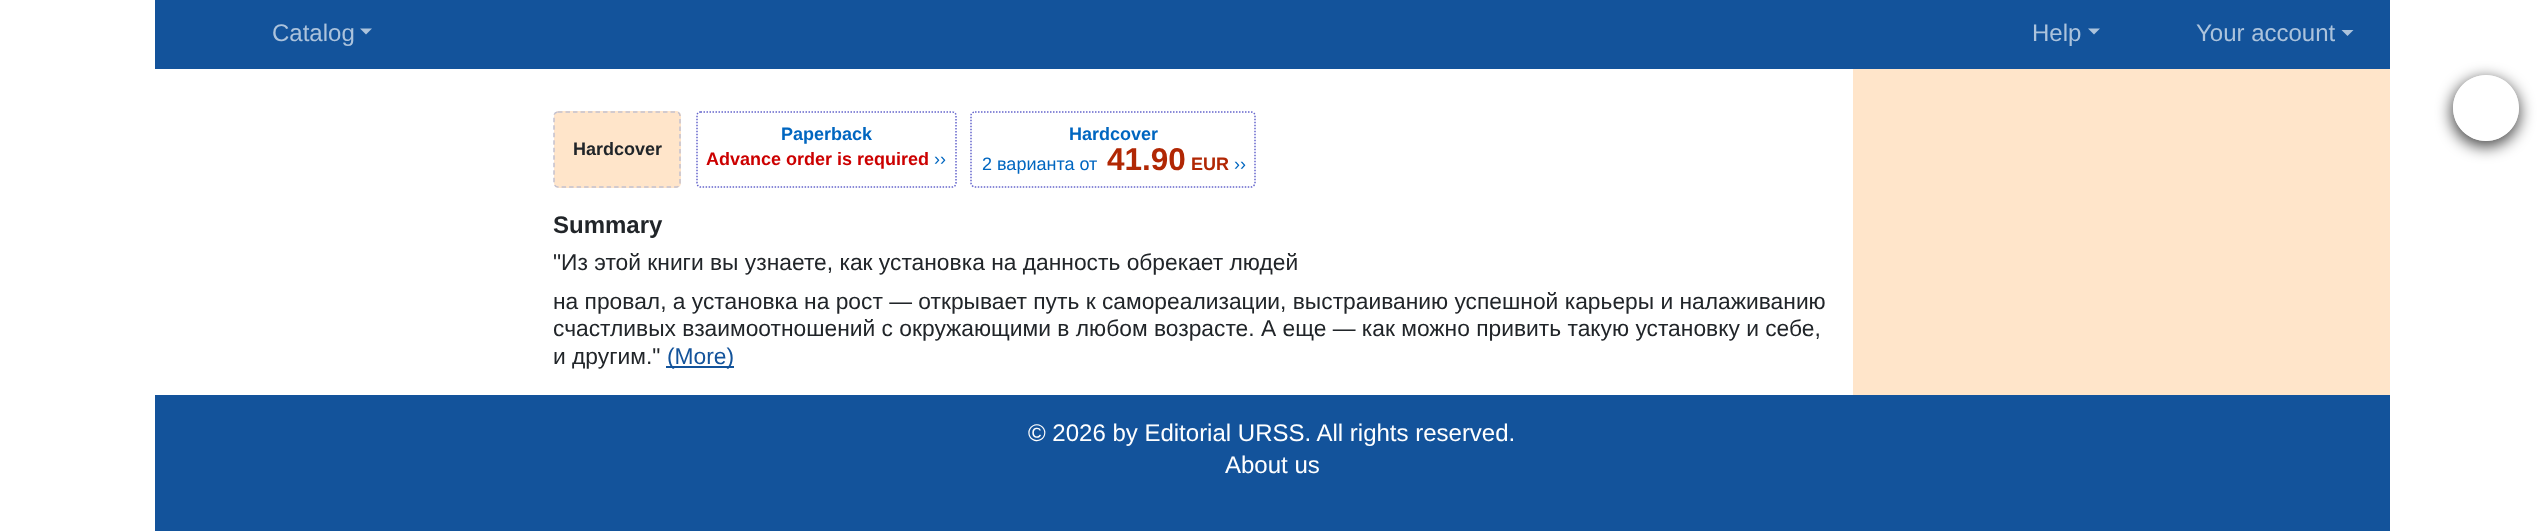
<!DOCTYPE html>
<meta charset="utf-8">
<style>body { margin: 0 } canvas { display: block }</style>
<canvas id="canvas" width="2543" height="531"></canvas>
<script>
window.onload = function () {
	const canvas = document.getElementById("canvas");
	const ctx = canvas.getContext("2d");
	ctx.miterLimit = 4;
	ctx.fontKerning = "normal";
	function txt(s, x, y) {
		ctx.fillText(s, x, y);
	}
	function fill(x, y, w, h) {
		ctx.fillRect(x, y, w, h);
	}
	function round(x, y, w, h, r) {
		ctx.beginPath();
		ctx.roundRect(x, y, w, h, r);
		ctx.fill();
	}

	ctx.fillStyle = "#FFFFFF";
	fill(0, 0, 2543, 531);
	ctx.fillStyle = "#13539B";
	fill(155, 0, 2235, 69);
	ctx.fillStyle = "#ACC3DC";
	ctx.beginPath();
	ctx.moveTo(360, 28.5);
	ctx.lineTo(372, 28.5);
	ctx.lineTo(366, 34.5);
	ctx.closePath();
	ctx.fill();
	ctx.beginPath();
	ctx.moveTo(2088, 28.5);
	ctx.lineTo(2100, 28.5);
	ctx.lineTo(2094, 34.5);
	ctx.closePath();
	ctx.fill();
	ctx.beginPath();
	ctx.moveTo(2341.5, 30);
	ctx.lineTo(2353.5, 30);
	ctx.lineTo(2347.5, 36);
	ctx.closePath();
	ctx.fill();
	ctx.fillStyle = "#FFE5CA";
	round(554, 111, 127, 77, 5);
	ctx.beginPath();
	ctx.moveTo(558, 112);
	ctx.lineTo(676.5, 112);
	ctx.bezierCurveTo(678.5, 112, 680, 113.5, 680, 115.5);
	ctx.lineTo(680, 183);
	ctx.bezierCurveTo(680, 185, 678.5, 187, 676.5, 187);
	ctx.lineTo(558, 187);
	ctx.bezierCurveTo(556, 187, 554, 185, 554, 183);
	ctx.lineTo(554, 115.5);
	ctx.bezierCurveTo(554, 113.5, 556, 112, 558, 112);
	ctx.closePath();
	ctx.strokeStyle = "#C4C1CF";
	ctx.lineWidth = 1.5;
	ctx.setLineDash([4.5, 3]);
	ctx.stroke();
	ctx.beginPath();
	ctx.moveTo(700.5, 112);
	ctx.lineTo(952.5, 112);
	ctx.bezierCurveTo(954.5, 112, 956, 113.5, 956, 115.5);
	ctx.lineTo(956, 183);
	ctx.bezierCurveTo(956, 185, 954.5, 187, 952.5, 187);
	ctx.lineTo(700.5, 187);
	ctx.bezierCurveTo(698.5, 187, 697, 185, 697, 183);
	ctx.lineTo(697, 115.5);
	ctx.bezierCurveTo(697, 113.5, 698.5, 112, 700.5, 112);
	ctx.closePath();
	ctx.strokeStyle = "#6666CC";
	ctx.setLineDash([1.5, 1.5]);
	ctx.stroke();
	ctx.beginPath();
	ctx.moveTo(975, 112);
	ctx.lineTo(1251, 112);
	ctx.bezierCurveTo(1253, 112, 1255, 113.5, 1255, 115.5);
	ctx.lineTo(1255, 183);
	ctx.bezierCurveTo(1255, 185, 1253, 187, 1251, 187);
	ctx.lineTo(975, 187);
	ctx.bezierCurveTo(973, 187, 971, 185, 971, 183);
	ctx.lineTo(971, 115.5);
	ctx.bezierCurveTo(971, 113.5, 973, 112, 975, 112);
	ctx.closePath();
	ctx.stroke();
	ctx.fillStyle = "#13539B";
	fill(666, 366, 68, 2);
	ctx.fillStyle = "#FFE5CA";
	fill(1853, 69, 537, 326);
	ctx.fillStyle = "#13539B";
	fill(155, 395, 2235, 136);
	ctx.save();
	ctx.beginPath();
	ctx.moveTo(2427, 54);
	ctx.lineTo(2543, 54);
	ctx.lineTo(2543, 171);
	ctx.lineTo(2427, 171);
	ctx.closePath();
	ctx.moveTo(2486, 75);
	ctx.bezierCurveTo(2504, 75, 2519, 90, 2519, 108);
	ctx.bezierCurveTo(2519, 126, 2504, 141, 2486, 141);
	ctx.bezierCurveTo(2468, 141, 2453, 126, 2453, 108);
	ctx.bezierCurveTo(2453, 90, 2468, 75, 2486, 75);
	ctx.closePath();
	ctx.clip("evenodd");
	ctx.fillStyle = "rgba(0, 0, 0, 0.7)";
	ctx.filter = "blur(7.5px)";
	ctx.beginPath();
	ctx.roundRect(2451, 78, 69, 69, 34.5);
	ctx.fill();
	ctx.filter = "none";
	ctx.restore();
	ctx.fillStyle = "rgba(255, 255, 255, 0.8)";
	ctx.beginPath();
	ctx.arc(2486, 108, 33, 0, Math.PI * 2);
	ctx.fill();
	ctx.font = "24px Liberation Sans";
	ctx.fillStyle = "#ACC3DC";
	txt("Catalog", 272, 41);
	txt("Help", 2032, 41);
	txt("Your account", 2196, 41);
	ctx.font = "bold 18px Liberation Sans";
	ctx.fillStyle = "#212529";
	txt("Hardcover", 573, 155);
	ctx.fillStyle = "#0066C0";
	txt("Paperback", 781, 140);
	ctx.fillStyle = "#CC0000";
	txt("Advance order is required", 706, 165);
	ctx.font = "18px Liberation Sans";
	ctx.fillStyle = "#0066C0";
	txt("››", 934, 165);
	ctx.font = "bold 18px Liberation Sans";
	txt("Hardcover", 1069, 140);
	ctx.font = "18px Liberation Sans";
	txt("2 варианта от", 982, 170);
	ctx.font = "bold 31.5px Liberation Sans";
	ctx.fillStyle = "#B12704";
	txt("41.90", 1107, 170);
	ctx.font = "bold 18px Liberation Sans";
	txt("EUR", 1191, 170);
	ctx.font = "18px Liberation Sans";
	ctx.fillStyle = "#0066C0";
	txt("››", 1234, 170);
	ctx.font = "bold 24px Liberation Sans";
	ctx.fillStyle = "#212529";
	txt("Summary", 553, 233);
	ctx.font = "22.8px Liberation Sans";
	txt("\"Из этой книги вы узнаете, как установка на данность обрекает людей", 553, 270);
	txt("на провал, а установка на рост — открывает путь к самореализации, выстраиванию успешной карьеры и налаживанию", 553, 309);
	txt("счастливых взаимоотношений с окружающими в любом возрасте. А еще — как можно привить такую установку и себе,", 553, 336);
	txt("и другим.\"", 553, 364);
	ctx.fillStyle = "#13539B";
	txt("(More)", 667, 364);
	ctx.font = "24px Liberation Sans";
	ctx.fillStyle = "#FFFFFF";
	txt("© 2026 by Editorial URSS. All rights reserved.", 1028, 441);
	txt("About us", 1225, 473);
};
</script>
